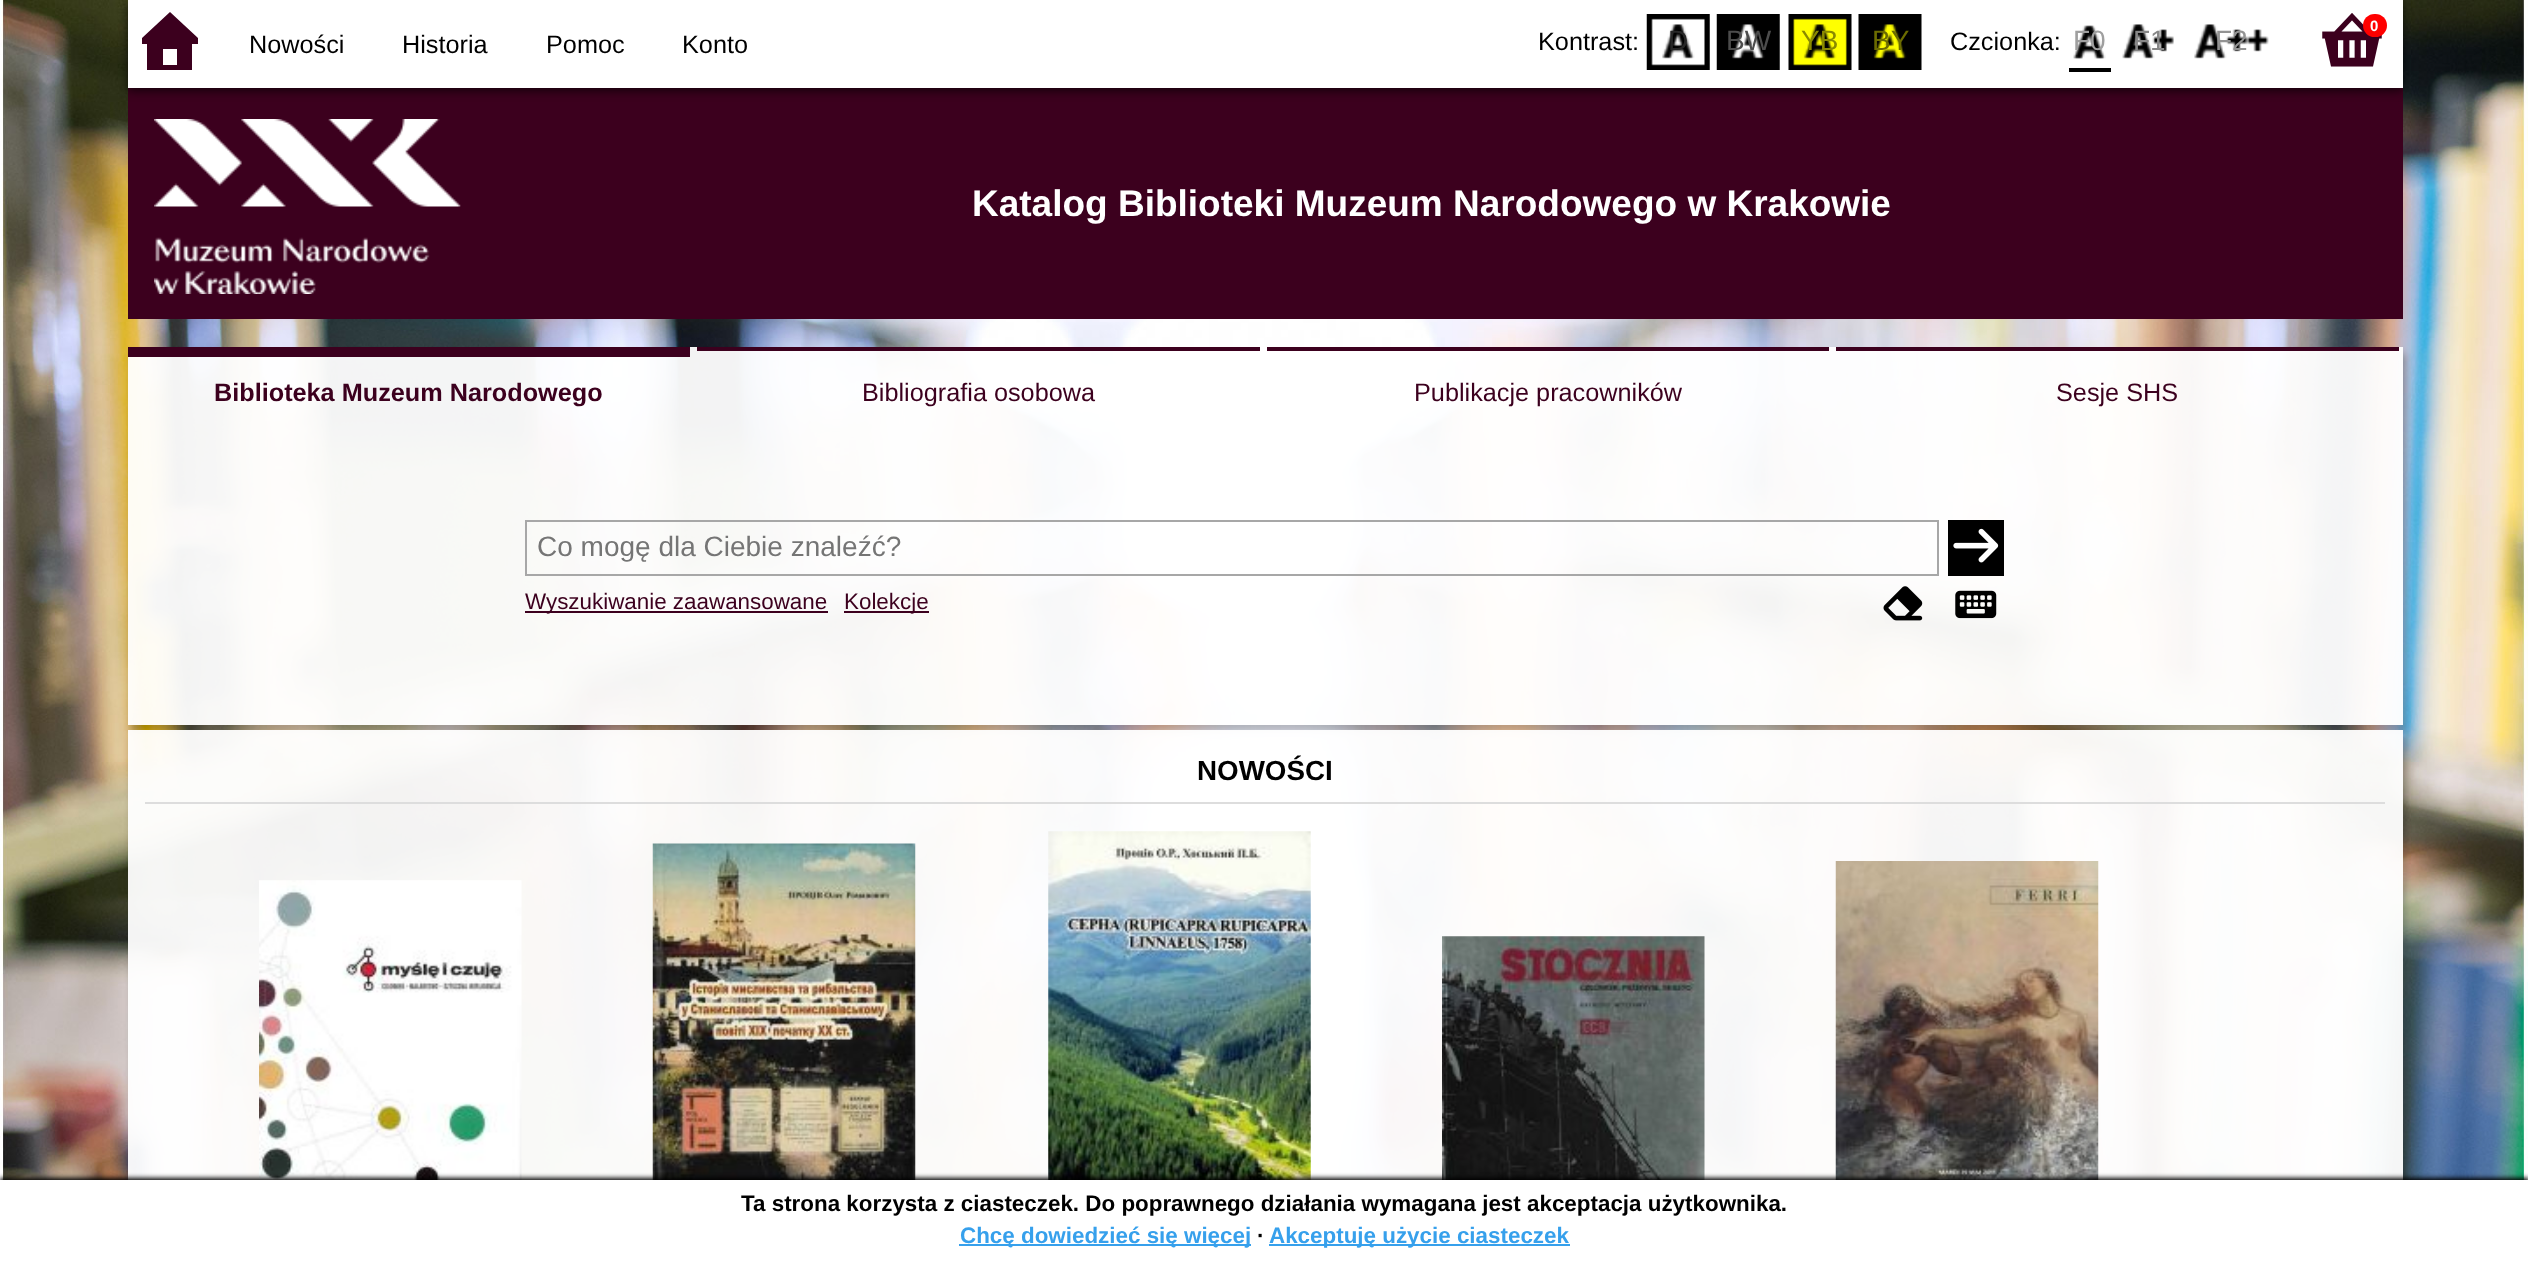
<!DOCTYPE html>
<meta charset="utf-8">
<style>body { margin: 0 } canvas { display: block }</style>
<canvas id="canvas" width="2528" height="1264"></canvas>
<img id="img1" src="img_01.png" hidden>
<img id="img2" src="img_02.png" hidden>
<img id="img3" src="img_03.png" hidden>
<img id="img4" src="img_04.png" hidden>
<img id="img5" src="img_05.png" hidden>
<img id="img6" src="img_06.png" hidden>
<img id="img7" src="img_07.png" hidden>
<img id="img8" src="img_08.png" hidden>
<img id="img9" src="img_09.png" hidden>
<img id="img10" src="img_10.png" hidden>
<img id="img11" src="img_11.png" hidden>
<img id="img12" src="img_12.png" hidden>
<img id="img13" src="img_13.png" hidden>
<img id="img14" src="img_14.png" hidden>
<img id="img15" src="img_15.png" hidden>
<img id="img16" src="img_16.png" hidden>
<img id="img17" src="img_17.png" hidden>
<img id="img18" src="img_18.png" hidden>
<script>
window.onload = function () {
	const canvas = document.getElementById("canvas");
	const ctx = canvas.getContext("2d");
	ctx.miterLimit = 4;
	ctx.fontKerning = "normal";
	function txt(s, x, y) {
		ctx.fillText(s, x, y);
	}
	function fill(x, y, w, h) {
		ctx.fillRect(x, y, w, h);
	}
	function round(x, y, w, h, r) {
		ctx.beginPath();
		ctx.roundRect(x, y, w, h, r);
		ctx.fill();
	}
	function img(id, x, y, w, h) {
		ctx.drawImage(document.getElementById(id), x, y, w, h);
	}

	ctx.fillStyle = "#FFFFFF";
	fill(0, 0, 2528, 1264);
	img("img1", 0, 0, 2528, 1180);
	ctx.fillStyle = "#3C001E";
	fill(128, 88, 2275, 231);
	ctx.fillStyle = "rgba(0, 0, 0, 0.65)";
	ctx.filter = "blur(5px)";
	ctx.beginPath();
	ctx.rect(128, 4, 2275, 87);
	ctx.fill();
	ctx.filter = "none";
	ctx.fillStyle = "#FFFFFF";
	fill(128, 0, 2275, 88);
	ctx.fillStyle = "#3C001E";
	ctx.beginPath();
	ctx.moveTo(198, 44);
	ctx.lineTo(192, 44);
	ctx.lineTo(192, 70);
	ctx.lineTo(147, 70);
	ctx.lineTo(147, 44);
	ctx.lineTo(142, 44);
	ctx.lineTo(142, 38);
	ctx.lineTo(170, 12);
	ctx.lineTo(198, 38);
	ctx.closePath();
	ctx.moveTo(177, 65);
	ctx.lineTo(177, 49);
	ctx.lineTo(163, 49);
	ctx.lineTo(163, 65);
	ctx.closePath();
	ctx.fill();
	img("img2", 2322, 13, 60, 54);
	ctx.fillStyle = "#FF0000";
	round(2363, 14, 24, 23, 11.5);
	img("img3", 1646, 14, 64, 56);
	img("img4", 1716, 14, 64, 56);
	img("img5", 1788, 14, 64, 56);
	img("img6", 1858, 14, 64, 56);
	img("img7", 2073, 25, 33, 34);
	ctx.fillStyle = "#000000";
	fill(2069, 68, 42, 4);
	img("img8", 2122, 24, 52, 35);
	img("img9", 2194, 24, 75, 35);
	img("img10", 154, 119, 307, 175);
	ctx.save();
	ctx.beginPath();
	ctx.moveTo(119, 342);
	ctx.lineTo(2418, 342);
	ctx.lineTo(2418, 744);
	ctx.lineTo(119, 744);
	ctx.closePath();
	ctx.moveTo(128, 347);
	ctx.lineTo(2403, 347);
	ctx.lineTo(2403, 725);
	ctx.lineTo(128, 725);
	ctx.closePath();
	ctx.clip("evenodd");
	ctx.fillStyle = "rgba(0, 0, 0, 0.25)";
	ctx.filter = "blur(3.5px)";
	ctx.beginPath();
	ctx.rect(131, 354, 2275, 378);
	ctx.fill();
	ctx.filter = "none";
	ctx.restore();
	ctx.fillStyle = "rgba(255, 255, 255, 0.95)";
	fill(128, 347, 2275, 378);
	ctx.fillStyle = "#3C001E";
	fill(128, 347, 562, 10);
	fill(697, 347, 563, 4);
	fill(1267, 347, 562, 4);
	fill(1836, 347, 563, 4);
	ctx.strokeStyle = "#A7A7A7";
	ctx.lineWidth = 2;
	ctx.strokeRect(526, 521, 1412, 54);
	ctx.fillStyle = "#000000";
	fill(1948, 520, 56, 56);
	img("img11", 1953, 528, 46, 35);
	ctx.fillStyle = "#3C001E";
	fill(525, 611, 303, 2);
	fill(844, 611, 85, 2);
	img("img12", 1883, 586, 40, 35);
	img("img13", 1955, 590, 42, 29);
	ctx.save();
	ctx.beginPath();
	ctx.moveTo(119, 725);
	ctx.lineTo(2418, 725);
	ctx.lineTo(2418, 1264);
	ctx.lineTo(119, 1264);
	ctx.closePath();
	ctx.moveTo(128, 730);
	ctx.lineTo(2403, 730);
	ctx.lineTo(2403, 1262);
	ctx.lineTo(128, 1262);
	ctx.closePath();
	ctx.clip("evenodd");
	ctx.fillStyle = "rgba(0, 0, 0, 0.25)";
	ctx.filter = "blur(3.5px)";
	ctx.beginPath();
	ctx.rect(131, 737, 2275, 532);
	ctx.fill();
	ctx.filter = "none";
	ctx.restore();
	ctx.fillStyle = "rgba(255, 255, 255, 0.95)";
	fill(128, 730, 2275, 450);
	ctx.fillStyle = "#DDDDDD";
	fill(145, 802, 2240, 2);
	img("img14", 259, 880, 263, 300);
	img("img15", 652, 843, 264, 337);
	img("img16", 1048, 831, 263, 349);
	img("img17", 1442, 936, 263, 244);
	img("img18", 1835, 861, 264, 319);
	ctx.fillStyle = "#000000";
	ctx.filter = "blur(2.5px)";
	ctx.beginPath();
	ctx.rect(0, 1178, 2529, 86);
	ctx.fill();
	ctx.filter = "none";
	ctx.fillStyle = "#FFFFFF";
	fill(0, 1180, 2528, 84);
	ctx.fillStyle = "#36A0EC";
	fill(959, 1244, 292, 2);
	fill(1269, 1244, 301, 2);
	ctx.font = "25.25px Liberation Sans";
	ctx.fillStyle = "#000000";
	txt("Nowości", 249, 53);
	txt("Historia", 402, 53);
	txt("Pomoc", 546, 53);
	txt("Konto", 682, 53);
	ctx.font = "bold 15px Liberation Sans";
	ctx.fillStyle = "#FFFFFF";
	txt("0", 2370, 31);
	ctx.font = "25.25px Liberation Sans";
	ctx.fillStyle = "#000000";
	txt("Kontrast:", 1538, 50);
	ctx.font = "28px Liberation Sans";
	ctx.fillStyle = "#272727";
	txt("D", 1668, 50);
	ctx.fillStyle = "#4C4C4C";
	txt("BW", 1726, 50);
	ctx.fillStyle = "#8A8A00";
	txt("YB", 1801, 50);
	ctx.fillStyle = "#6B6B00";
	txt("BY", 1872, 50);
	ctx.font = "25.25px Liberation Sans";
	ctx.fillStyle = "#000000";
	txt("Czcionka:", 1950, 50);
	ctx.font = "28px Liberation Sans";
	ctx.fillStyle = "#9F9F9F";
	txt("F0", 2073, 50);
	ctx.fillStyle = "#878787";
	txt("F1", 2133, 50);
	ctx.fillStyle = "#939393";
	txt("F2", 2215, 50);
	ctx.font = "bold 37px Liberation Sans";
	ctx.fillStyle = "#FFFFFF";
	txt("Katalog Biblioteki Muzeum Narodowego w Krakowie", 972, 216);
	ctx.font = "bold 25.25px Liberation Sans";
	ctx.fillStyle = "#3C001E";
	txt("Biblioteka Muzeum Narodowego", 214, 401);
	ctx.font = "25.25px Liberation Sans";
	txt("Bibliografia osobowa", 862, 401);
	txt("Publikacje pracowników", 1414, 401);
	txt("Sesje SHS", 2056, 401);
	ctx.font = "28px Liberation Sans";
	ctx.fillStyle = "#757575";
	txt("Co mogę dla Ciebie znaleźć?", 537, 556);
	ctx.font = "22.4px Liberation Sans";
	ctx.fillStyle = "#3C001E";
	txt("Wyszukiwanie zaawansowane", 525, 609);
	txt("Kolekcje", 844, 609);
	ctx.font = "bold 27.75px Liberation Sans";
	ctx.fillStyle = "#000000";
	txt("NOWOŚCI", 1197, 780);
	ctx.font = "bold 22.4px Liberation Sans";
	txt("Ta strona korzysta z ciasteczek. Do poprawnego działania wymagana jest akceptacja użytkownika.", 741, 1211);
	ctx.fillStyle = "#36A0EC";
	txt("Chcę dowiedzieć się więcej", 960, 1243);
	ctx.fillStyle = "#000000";
	txt("∙", 1257, 1243);
	ctx.fillStyle = "#36A0EC";
	txt("Akceptuję użycie ciasteczek", 1269, 1243);
};
</script>
